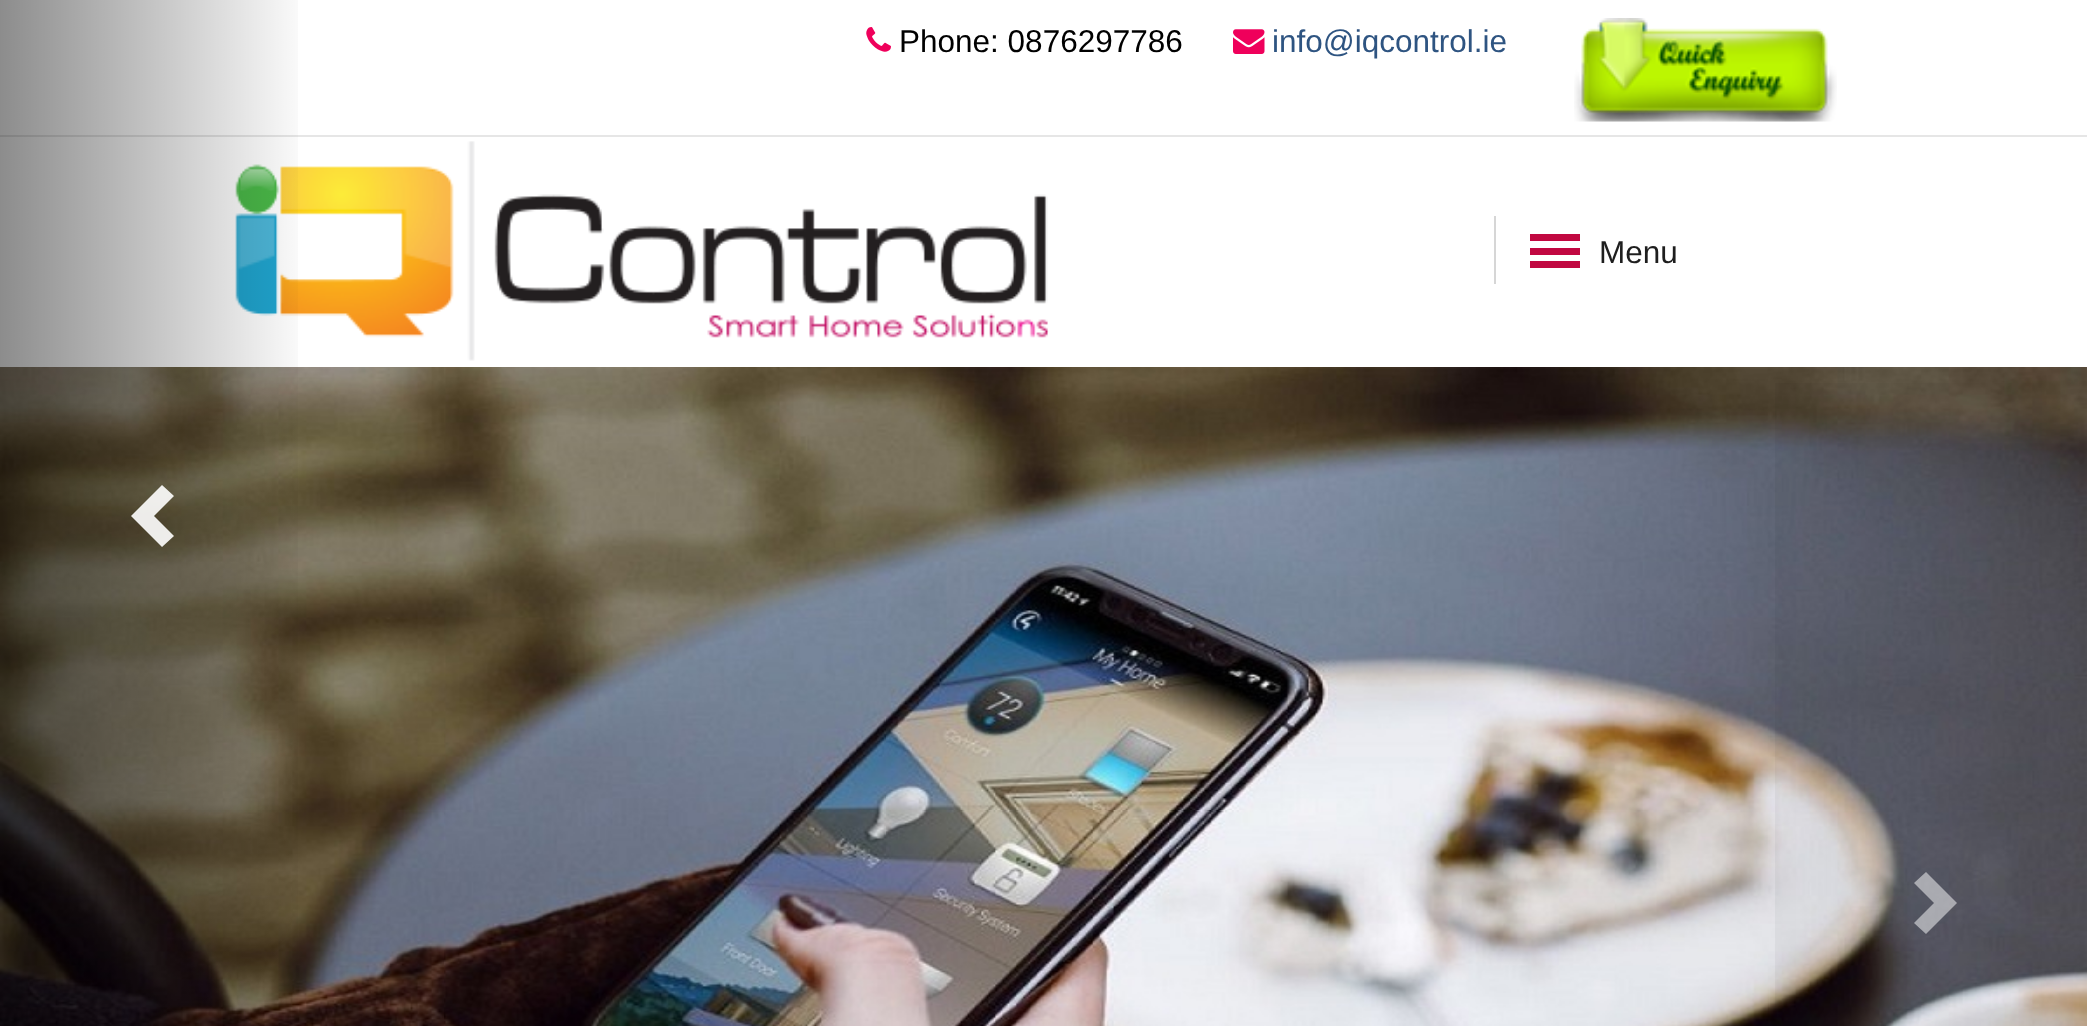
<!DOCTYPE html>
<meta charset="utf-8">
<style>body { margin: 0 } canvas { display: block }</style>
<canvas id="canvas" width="2087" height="1026"></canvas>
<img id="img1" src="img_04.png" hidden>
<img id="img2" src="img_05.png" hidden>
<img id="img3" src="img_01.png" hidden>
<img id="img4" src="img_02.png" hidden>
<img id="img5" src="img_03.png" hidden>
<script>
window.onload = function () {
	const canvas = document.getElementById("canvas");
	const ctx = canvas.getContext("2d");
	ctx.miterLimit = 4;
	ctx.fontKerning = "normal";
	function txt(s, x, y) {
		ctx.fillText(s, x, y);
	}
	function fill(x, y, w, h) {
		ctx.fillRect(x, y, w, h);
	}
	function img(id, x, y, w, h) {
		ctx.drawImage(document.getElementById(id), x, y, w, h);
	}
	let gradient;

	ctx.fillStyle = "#FFFFFF";
	fill(0, 0, 2087, 1026);
	ctx.fillStyle = "#E6E6E6";
	fill(0, 135, 2087, 2);
	img("img1", 235, 141, 814, 220);
	img("img2", 0, 367, 2087, 659);
	gradient = ctx.createLinearGradient(0, 513, 313, 513);
	gradient.addColorStop(0, "rgba(0, 0, 0, 0.45)");
	gradient.addColorStop(1, "rgba(0, 0, 0, 0)");
	ctx.fillStyle = gradient;
	fill(0, 0, 298, 1026);
	ctx.fillStyle = "rgba(255, 255, 255, 0.9)";
	ctx.beginPath();
	ctx.moveTo(174, 496);
	ctx.lineTo(154, 516);
	ctx.lineTo(174, 536);
	ctx.lineTo(162, 547);
	ctx.lineTo(131, 516);
	ctx.lineTo(162, 485);
	ctx.closePath();
	ctx.fill();
	img("img3", 866, 27, 25, 25);
	img("img4", 1233, 29, 32, 25);
	img("img5", 1574, 18, 263, 104);
	ctx.fillStyle = "#D6D6D6";
	fill(1494, 216, 2, 68);
	ctx.fillStyle = "#C10841";
	fill(1530, 234, 50, 7);
	fill(1530, 248, 50, 7);
	fill(1530, 261, 50, 7);
	ctx.fillStyle = "rgba(255, 255, 255, 0.5)";
	ctx.beginPath();
	ctx.moveTo(1957, 903);
	ctx.lineTo(1926, 934);
	ctx.lineTo(1914, 923);
	ctx.lineTo(1934, 903);
	ctx.lineTo(1914, 883);
	ctx.lineTo(1926, 872);
	ctx.closePath();
	ctx.fill();
	ctx.font = "31.5px Liberation Sans";
	ctx.fillStyle = "#000000";
	txt("Phone: 0876297786", 899, 52);
	ctx.fillStyle = "#2E5481";
	txt("info@iqcontrol.ie", 1272, 52);
	ctx.fillStyle = "#1E1E1E";
	txt("Menu", 1599, 263);
};
</script>
